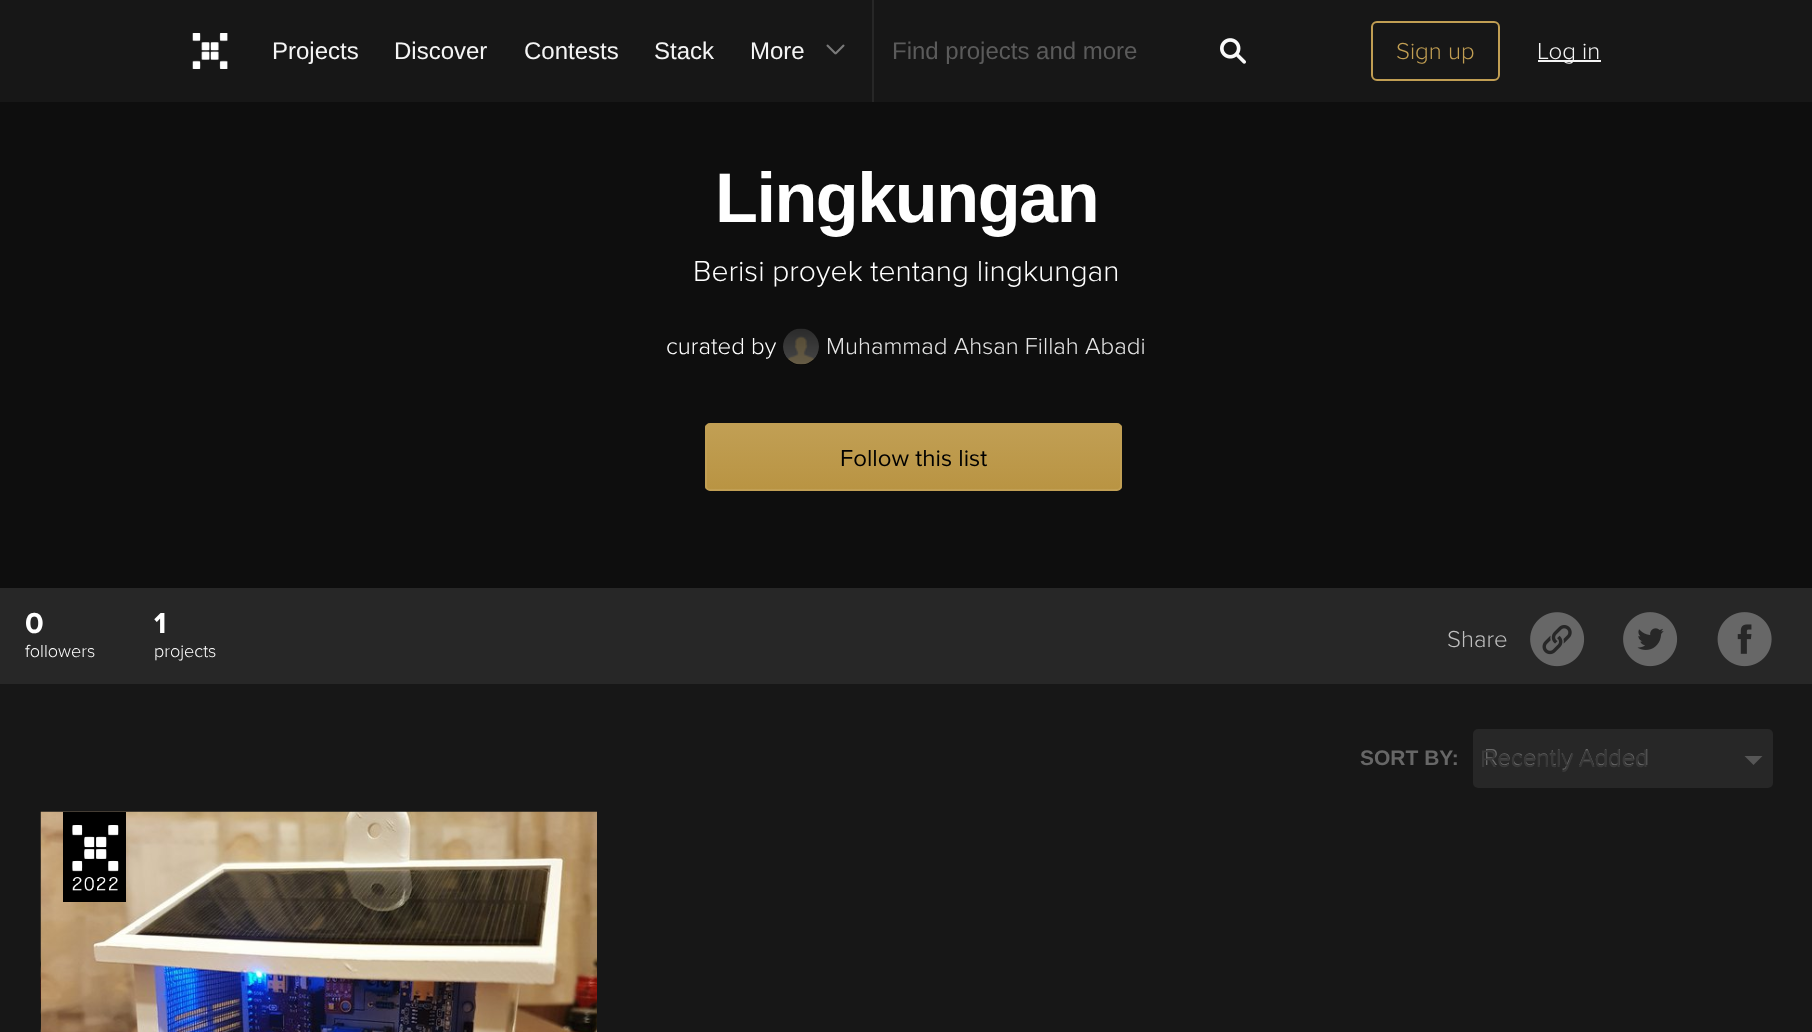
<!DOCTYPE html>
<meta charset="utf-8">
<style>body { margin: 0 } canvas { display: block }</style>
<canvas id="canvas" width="1812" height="1032"></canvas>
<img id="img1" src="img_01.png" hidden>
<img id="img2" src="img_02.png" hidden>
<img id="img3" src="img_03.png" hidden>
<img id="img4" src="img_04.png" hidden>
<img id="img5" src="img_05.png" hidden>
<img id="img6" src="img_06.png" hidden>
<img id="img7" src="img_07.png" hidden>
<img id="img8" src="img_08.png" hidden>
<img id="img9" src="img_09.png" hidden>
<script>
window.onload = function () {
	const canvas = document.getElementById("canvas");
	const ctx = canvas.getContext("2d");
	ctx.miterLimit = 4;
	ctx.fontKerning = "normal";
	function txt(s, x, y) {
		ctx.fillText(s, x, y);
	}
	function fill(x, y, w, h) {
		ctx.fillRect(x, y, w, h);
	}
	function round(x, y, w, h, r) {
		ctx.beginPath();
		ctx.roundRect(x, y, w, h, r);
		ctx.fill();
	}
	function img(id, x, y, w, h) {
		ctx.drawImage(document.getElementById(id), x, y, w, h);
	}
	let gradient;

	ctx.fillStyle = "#171717";
	fill(0, 0, 1812, 1032);
	img("img1", 192, 33, 36, 36);
	img("img2", 826, 44, 19, 11);
	ctx.fillStyle = "#272727";
	fill(872, 0, 2, 102);
	img("img3", 1220, 38, 26, 26);
	ctx.beginPath();
	ctx.roundRect(1372, 22, 127, 58, 5);
	ctx.strokeStyle = "#C19E53";
	ctx.lineWidth = 2;
	ctx.stroke();
	ctx.fillStyle = "#F5F5F5";
	fill(1538, 60, 63, 2);
	ctx.fillStyle = "#0E0E0E";
	fill(0, 102, 1812, 486);
	ctx.fillStyle = "#000000";
	ctx.beginPath();
	ctx.arc(801, 347, 18, 0, Math.PI * 2);
	ctx.fill();
	img("img4", 783, 328, 36, 37);
	ctx.save();
	ctx.beginPath();
	ctx.roundRect(705, 423, 417, 68, 5);
	ctx.clip();
	gradient = ctx.createLinearGradient(914, 425, 914, 489);
	gradient.addColorStop(0, "#C19F54");
	gradient.addColorStop(1, "#B99443");
	ctx.fillStyle = gradient;
	fill(705, 425, 417, 64);
	ctx.restore();
	ctx.beginPath();
	ctx.roundRect(706, 424, 415, 66, 4);
	ctx.strokeStyle = "#C19F54";
	ctx.stroke();
	ctx.fillStyle = "#272727";
	fill(0, 588, 1812, 96);
	img("img5", 1530, 612, 55, 55);
	img("img6", 1623, 612, 55, 55);
	img("img7", 1717, 612, 55, 55);
	round(1473, 729, 300, 59, 5);
	ctx.fillStyle = "#565656";
	ctx.beginPath();
	ctx.moveTo(1744.5, 756);
	ctx.lineTo(1762.5, 756);
	ctx.lineTo(1753.5, 765);
	ctx.closePath();
	ctx.fill();
	img("img8", 40, 811, 557, 221);
	ctx.fillStyle = "#000000";
	fill(63, 812, 63, 90);
	img("img9", 72, 825, 47, 66);
	ctx.font = "24px Liberation Sans";
	ctx.fillStyle = "#F5F5F5";
	txt("Projects", 272, 59);
	txt("Discover", 394, 59);
	txt("Contests", 524, 59);
	txt("Stack", 654, 59);
	txt("More", 750, 59);
	ctx.fillStyle = "#5B5B5B";
	txt("Find projects and more", 892, 59);
	ctx.font = "300 24px Proxima Nova";
	ctx.fillStyle = "#C19E53";
	txt("Sign up", 1396, 59);
	ctx.fillStyle = "#F5F5F5";
	txt("Log in", 1537, 59);
	ctx.letterSpacing = "-1.5px";
	ctx.font = "bold 70.25px Liberation Sans";
	ctx.fillStyle = "#FFFFFF";
	txt("Lingkungan", 715, 222);
	ctx.letterSpacing = "0px";
	ctx.font = "300 30px Proxima Nova";
	txt("Berisi proyek tentang lingkungan", 693, 281);
	ctx.font = "300 24px Proxima Nova";
	txt("curated by", 666, 354);
	ctx.fillStyle = "#E6E6E6";
	txt("Muhammad Ahsan Fillah Abadi", 826, 354);
	ctx.font = "24px Proxima Nova";
	ctx.fillStyle = "#000000";
	txt("Follow this list", 840, 466);
	ctx.font = "bold 30px Proxima Nova";
	ctx.fillStyle = "#FFFFFF";
	txt("0", 25, 633);
	ctx.font = "300 18px Proxima Nova";
	txt("followers", 25, 657);
	ctx.font = "bold 30px Proxima Nova";
	txt("1", 154, 633);
	ctx.font = "300 18px Proxima Nova";
	txt("projects", 154, 657);
	ctx.font = "300 24px Proxima Nova";
	ctx.fillStyle = "#BFBFBF";
	txt("Share", 1447, 647);
	ctx.font = "bold 21px Liberation Sans";
	ctx.fillStyle = "#676767";
	txt("SORT BY:", 1360, 765);
	ctx.font = "300 24px Proxima Nova";
	txt("Recently Added", 1484, 765);
	ctx.font = "24px Liberation Sans";
	ctx.fillStyle = "#393939";
	txt("Recently Added", 1480, 767);
};
</script>
